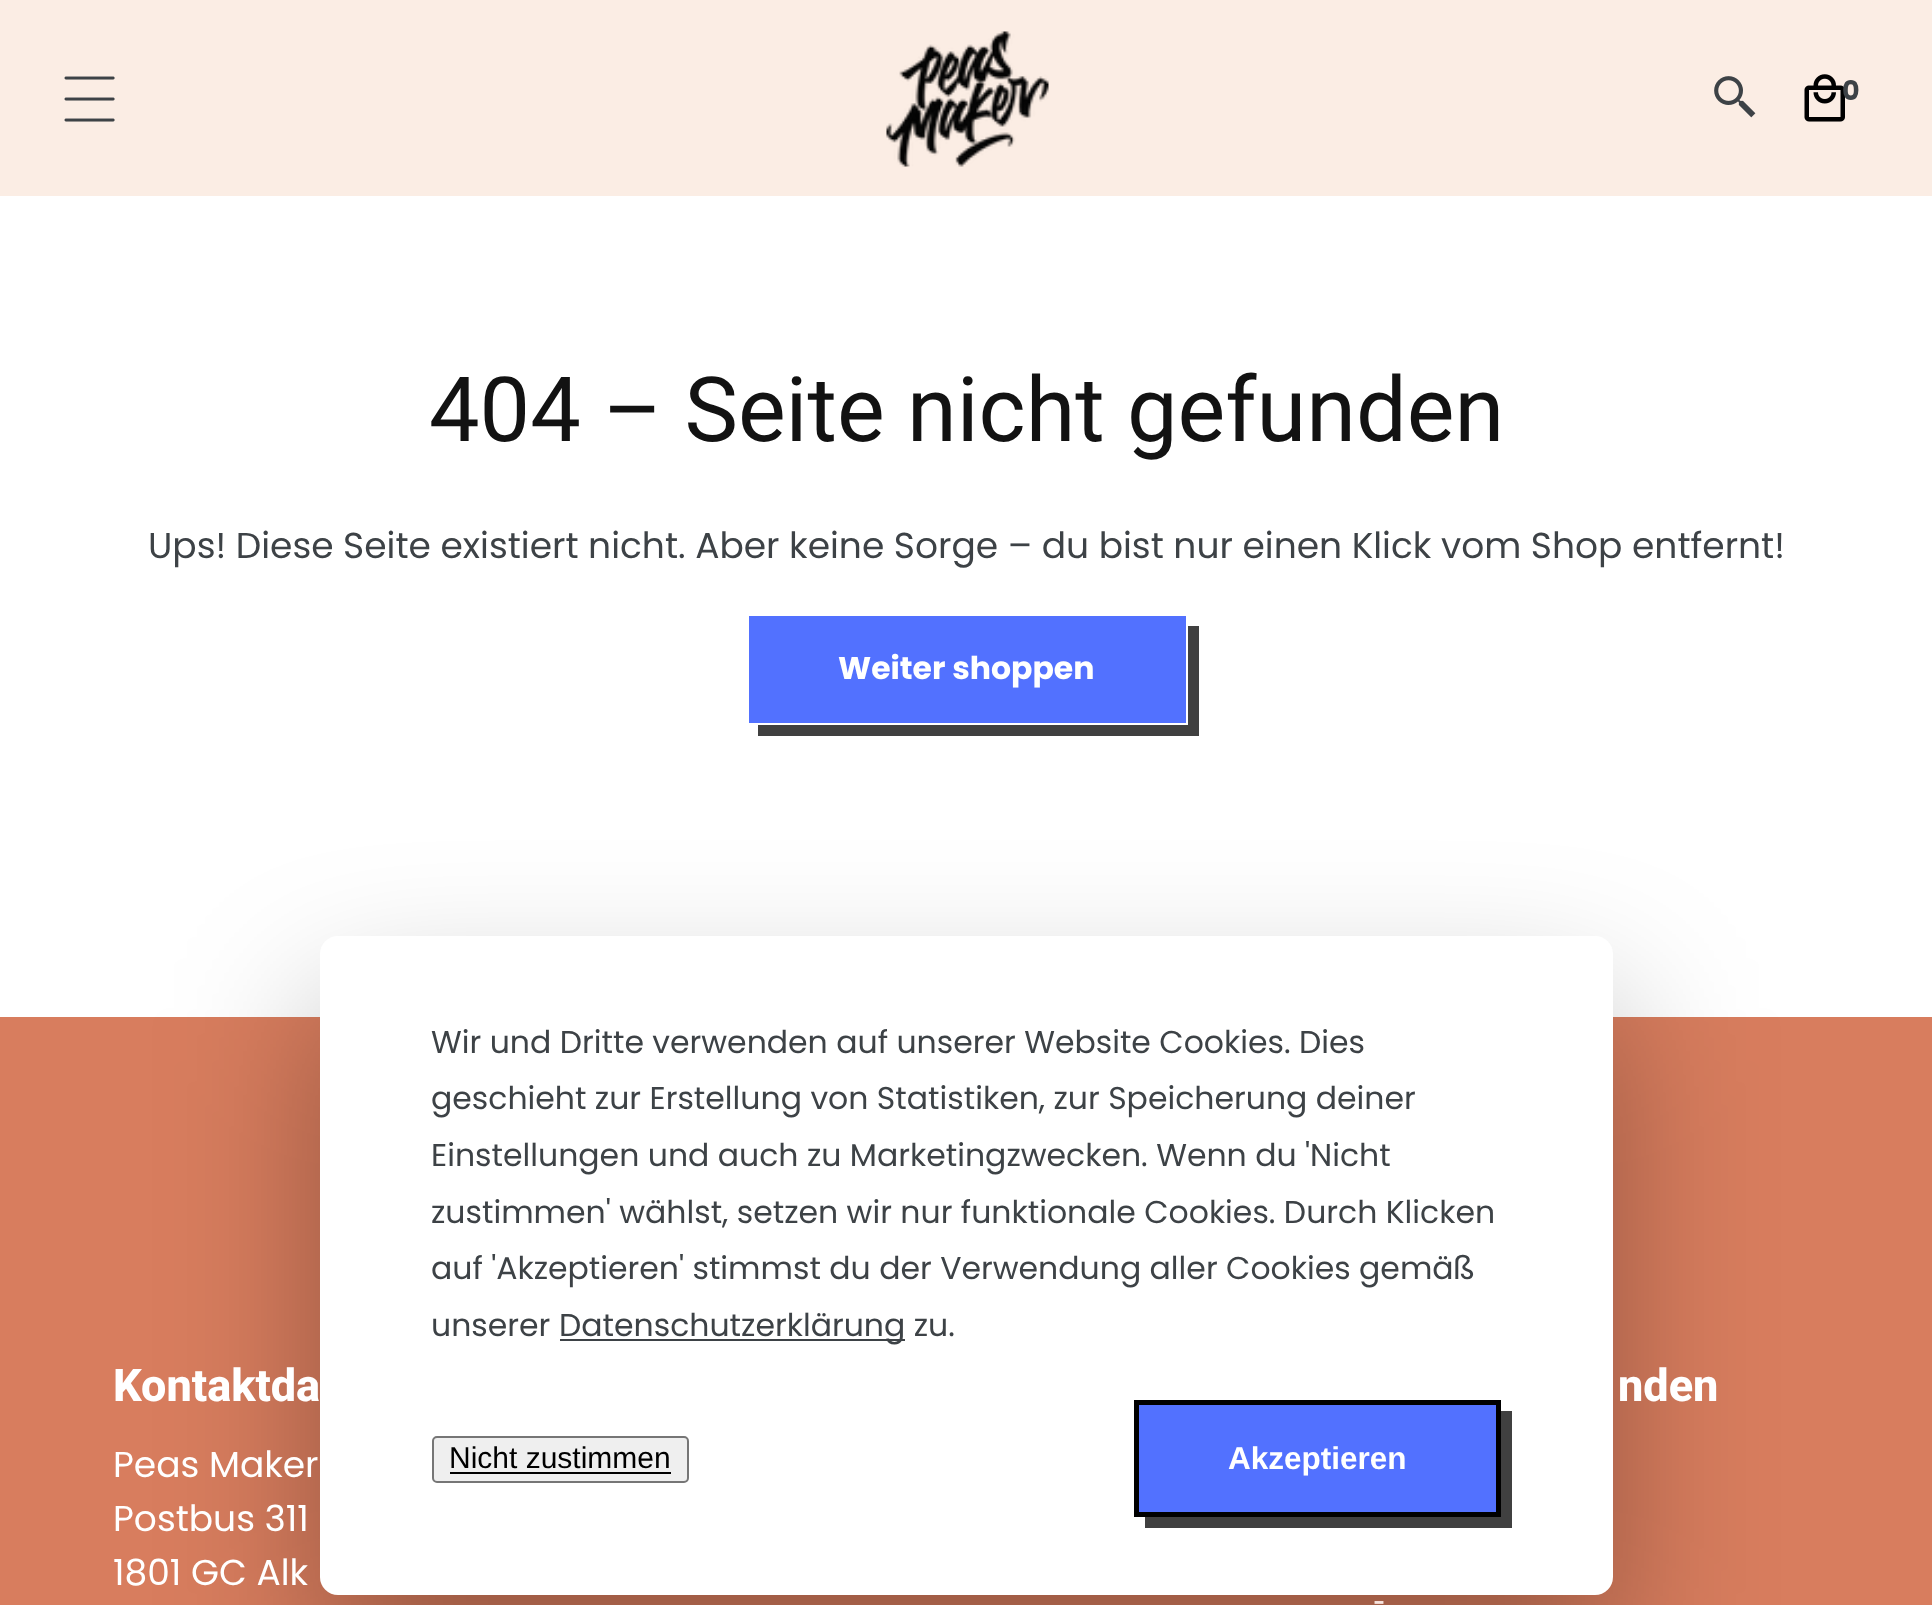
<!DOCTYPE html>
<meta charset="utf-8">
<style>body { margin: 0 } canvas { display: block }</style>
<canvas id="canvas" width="1932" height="1605"></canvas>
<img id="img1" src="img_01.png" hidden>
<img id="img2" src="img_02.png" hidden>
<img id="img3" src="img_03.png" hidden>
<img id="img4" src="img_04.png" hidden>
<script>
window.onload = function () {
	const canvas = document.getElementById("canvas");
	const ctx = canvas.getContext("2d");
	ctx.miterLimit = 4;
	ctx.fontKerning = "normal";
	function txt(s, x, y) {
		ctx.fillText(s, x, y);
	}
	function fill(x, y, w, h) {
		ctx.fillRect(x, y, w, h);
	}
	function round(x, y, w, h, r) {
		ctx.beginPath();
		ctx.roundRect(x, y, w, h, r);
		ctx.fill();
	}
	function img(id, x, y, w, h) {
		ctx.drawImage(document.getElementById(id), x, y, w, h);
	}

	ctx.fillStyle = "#FFFFFF";
	fill(0, 0, 1932, 1605);
	ctx.fillStyle = "#FBEDE4";
	fill(0, 0, 1932, 196);
	img("img1", 64, 76, 51, 46);
	img("img2", 886, 31, 163, 136);
	img("img3", 1714, 76, 42, 42);
	img("img4", 1804, 74, 41, 48);
	ctx.fillStyle = "#404040";
	ctx.beginPath();
	ctx.moveTo(758, 724);
	ctx.lineTo(758, 736);
	ctx.lineTo(1199, 736);
	ctx.lineTo(1199, 626);
	ctx.lineTo(1188, 626);
	ctx.lineTo(1188, 724);
	ctx.closePath();
	ctx.fill();
	ctx.fillStyle = "#5271FF";
	ctx.beginPath();
	ctx.rect(748, 615, 439, 109);
	ctx.fill();
	ctx.strokeStyle = "#FFFFFF";
	ctx.lineWidth = 2;
	ctx.stroke();
	ctx.fillStyle = "#D87D5E";
	fill(0, 1017, 1932, 588);
	ctx.fillStyle = "rgba(0, 0, 0, 0.3)";
	ctx.filter = "blur(76.5px)";
	ctx.beginPath();
	ctx.roundRect(320, 1008, 1293, 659, 18);
	ctx.fill();
	ctx.filter = "none";
	ctx.fillStyle = "#FFFFFF";
	round(320, 936, 1293, 659, 18);
	ctx.fillStyle = "#3D4246";
	fill(560, 1339, 345, 2);
	ctx.fillStyle = "#EFEFEF";
	ctx.beginPath();
	ctx.roundRect(433, 1437, 255, 45, 4);
	ctx.fill();
	ctx.strokeStyle = "#767676";
	ctx.stroke();
	ctx.fillStyle = "#000000";
	fill(450, 1472, 221, 2);
	ctx.fillStyle = "#404040";
	ctx.beginPath();
	ctx.moveTo(1145, 1516);
	ctx.lineTo(1145, 1528);
	ctx.lineTo(1512, 1528);
	ctx.lineTo(1512, 1411);
	ctx.lineTo(1501, 1411);
	ctx.lineTo(1501, 1516);
	ctx.closePath();
	ctx.fill();
	ctx.fillStyle = "#5271FF";
	ctx.beginPath();
	ctx.rect(1136.5, 1402.5, 362, 112);
	ctx.fill();
	ctx.strokeStyle = "#000000";
	ctx.lineWidth = 5;
	ctx.stroke();
	ctx.font = "bold 27px Poppins";
	ctx.fillStyle = "#3D4246";
	txt("0", 1842, 100);
	ctx.font = "90px Roboto";
	ctx.fillStyle = "#121212";
	txt("404 – Seite nicht gefunden", 429, 441);
	ctx.font = "36px Poppins";
	ctx.fillStyle = "#3D4246";
	txt("Ups! Diese Seite existiert nicht. Aber keine Sorge – du bist nur einen Klick vom Shop entfernt!", 148, 558);
	ctx.font = "bold 31.5px Poppins";
	ctx.fillStyle = "#FFFFFF";
	txt("Weiter shoppen", 838, 679);
	ctx.font = "31.5px Poppins";
	ctx.fillStyle = "#3D4246";
	txt("Wir und Dritte verwenden auf unserer Website Cookies. Dies", 431, 1053);
	txt("geschieht zur Erstellung von Statistiken, zur Speicherung deiner", 431, 1109);
	txt("Einstellungen und auch zu Marketingzwecken. Wenn du 'Nicht", 431, 1166);
	txt("zustimmen' wählst, setzen wir nur funktionale Cookies. Durch Klicken", 431, 1223);
	txt("auf 'Akzeptieren' stimmst du der Verwendung aller Cookies gemäß", 431, 1279);
	txt("unserer", 431, 1336);
	txt("Datenschutzerklärung zu.", 559, 1336);
	ctx.font = "30px Liberation Sans";
	ctx.fillStyle = "#000000";
	txt("Nicht zustimmen", 449, 1468);
	ctx.font = "bold 31.5px Liberation Sans";
	ctx.fillStyle = "#FFFFFF";
	txt("Akzeptieren", 1228, 1469);
	ctx.font = "800 45px Roboto";
	txt("Kontaktda", 113, 1401);
	ctx.font = "36px Poppins";
	txt("Peas Maker", 113, 1477);
	txt("Postbus 311", 113, 1531);
	txt("1801 GC Alk", 113, 1585);
	ctx.font = "800 45px Roboto";
	txt("nden", 1618, 1401);
	ctx.letterSpacing = "1px";
	ctx.font = "36px Liberation Sans";
	ctx.fillStyle = "#F7E5DF";
	txt("-", 1373, 1612);
};
</script>
